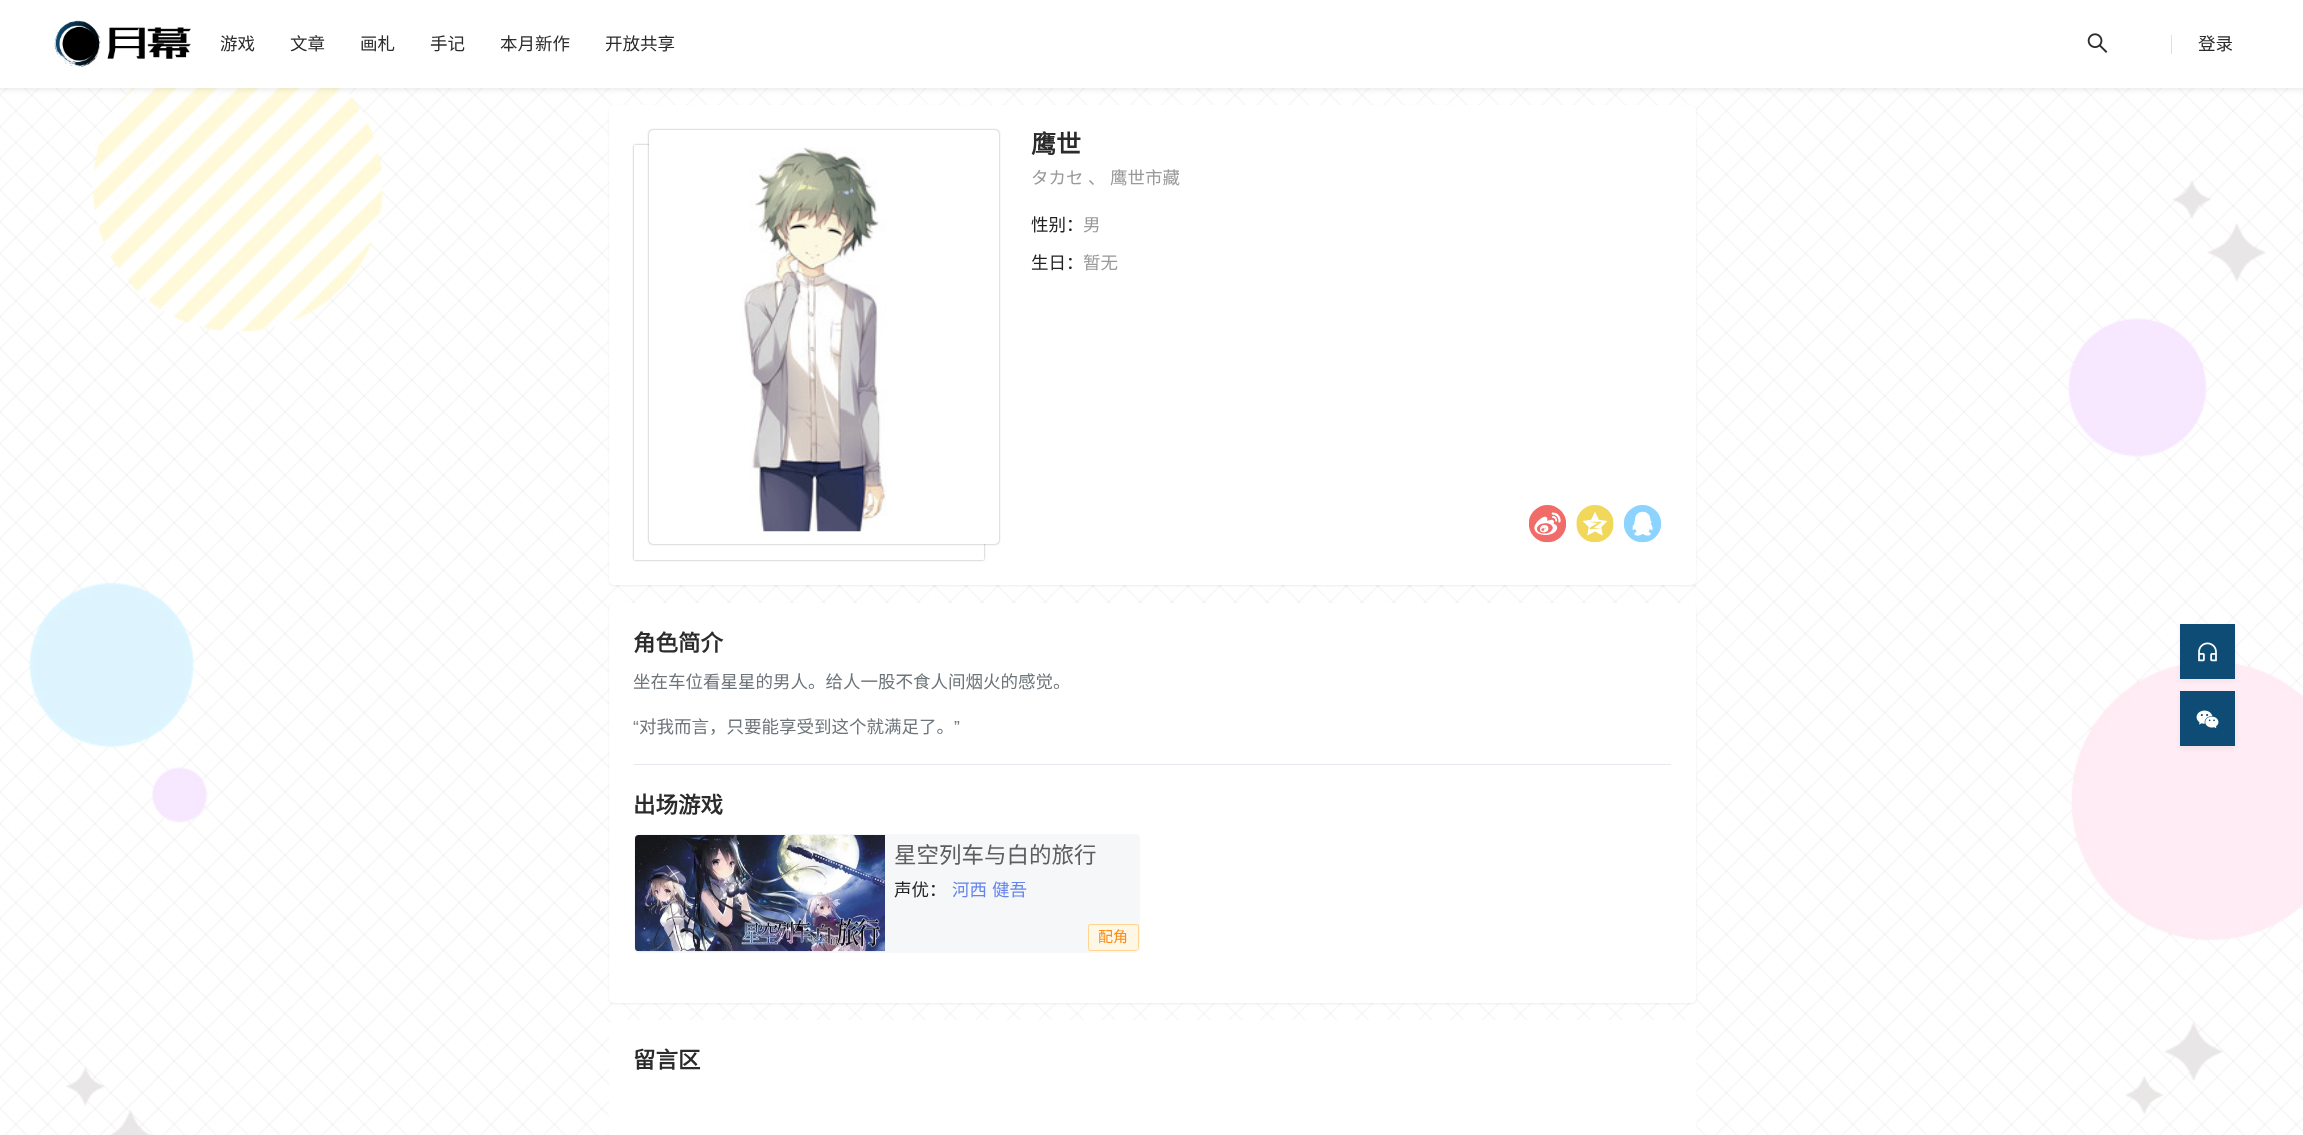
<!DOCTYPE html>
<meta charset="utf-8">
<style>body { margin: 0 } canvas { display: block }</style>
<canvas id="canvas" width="2303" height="1135"></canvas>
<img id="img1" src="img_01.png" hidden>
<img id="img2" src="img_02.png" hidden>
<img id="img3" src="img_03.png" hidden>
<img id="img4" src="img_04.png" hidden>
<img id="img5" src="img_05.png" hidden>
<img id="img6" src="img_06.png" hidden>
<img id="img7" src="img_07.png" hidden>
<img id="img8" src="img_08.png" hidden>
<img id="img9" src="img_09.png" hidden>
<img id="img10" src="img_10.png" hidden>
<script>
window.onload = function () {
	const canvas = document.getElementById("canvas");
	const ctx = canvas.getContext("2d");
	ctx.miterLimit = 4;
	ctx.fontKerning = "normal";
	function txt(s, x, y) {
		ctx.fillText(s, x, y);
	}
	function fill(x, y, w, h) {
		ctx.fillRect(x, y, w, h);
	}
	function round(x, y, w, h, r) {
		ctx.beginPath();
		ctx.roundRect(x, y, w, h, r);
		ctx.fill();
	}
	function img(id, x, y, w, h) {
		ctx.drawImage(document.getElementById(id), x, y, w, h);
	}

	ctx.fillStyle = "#FFFFFF";
	fill(0, 0, 2303, 1135);
	img("img1", 0, 88, 2303, 1047);
	ctx.fillStyle = "rgba(0, 0, 0, 0.08)";
	ctx.filter = "blur(2.5px)";
	ctx.beginPath();
	ctx.rect(-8, 3, 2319, 87);
	ctx.fill();
	ctx.filter = "none";
	ctx.fillStyle = "#FFFFFF";
	fill(0, 0, 2303, 88);
	img("img2", 54, 20, 137, 47);
	img("img3", 2087, 33, 21, 20);
	ctx.fillStyle = "#DEE0E1";
	fill(2171, 35, 1, 19);
	ctx.fillStyle = "rgba(0, 0, 0, 0.07)";
	ctx.filter = "blur(1px)";
	ctx.beginPath();
	ctx.roundRect(609, 106, 1087, 480, 5);
	ctx.fill();
	ctx.filter = "none";
	ctx.fillStyle = "#FFFFFF";
	round(609, 105, 1087, 480, 5);
	ctx.fillStyle = "rgba(0, 0, 0, 0.35)";
	ctx.filter = "blur(1px)";
	ctx.beginPath();
	ctx.roundRect(634, 145, 350, 415, 1);
	ctx.fill();
	ctx.filter = "none";
	ctx.fillStyle = "#FFFFFF";
	round(634, 145, 350, 415, 1);
	ctx.fillStyle = "rgba(0, 0, 0, 0.35)";
	ctx.filter = "blur(1px)";
	ctx.beginPath();
	ctx.roundRect(649, 130, 350, 414, 4);
	ctx.fill();
	ctx.filter = "none";
	ctx.fillStyle = "#FFFFFF";
	ctx.beginPath();
	ctx.roundRect(649.5, 130.5, 349, 413, 3.5);
	ctx.fill();
	ctx.strokeStyle = "#FFFFFF";
	ctx.stroke();
	img("img4", 741, 147, 146, 385);
	img("img5", 1529, 505, 37, 38);
	img("img6", 1576, 505, 38, 38);
	img("img7", 1624, 505, 37, 38);
	ctx.fillStyle = "rgba(0, 0, 0, 0.07)";
	ctx.filter = "blur(1px)";
	ctx.beginPath();
	ctx.roundRect(609, 604, 1087, 400, 5);
	ctx.fill();
	ctx.filter = "none";
	ctx.fillStyle = "#FFFFFF";
	round(609, 603, 1087, 400, 5);
	ctx.fillStyle = "#E5E9EF";
	fill(634, 764, 1037, 1);
	ctx.fillStyle = "#F6F7F9";
	round(634, 834, 506, 119, 5);
	img("img8", 635, 835, 250, 117);
	ctx.fillStyle = "#FFF7E6";
	ctx.beginPath();
	ctx.roundRect(1088, 924, 51, 27, [2.5, 2.5, 4, 2.5]);
	ctx.fill();
	ctx.fillStyle = "#FFD591";
	ctx.beginPath();
	ctx.moveTo(1090, 924);
	ctx.bezierCurveTo(1089, 924, 1088, 925, 1088, 926);
	ctx.lineTo(1088, 948);
	ctx.bezierCurveTo(1088, 950, 1089, 951, 1090, 951);
	ctx.lineTo(1135, 951);
	ctx.bezierCurveTo(1137, 951, 1139, 949, 1139, 947);
	ctx.lineTo(1139, 926);
	ctx.bezierCurveTo(1139, 925, 1138, 924, 1136, 924);
	ctx.closePath();
	ctx.moveTo(1090, 925);
	ctx.bezierCurveTo(1090, 925, 1089, 926, 1089, 926);
	ctx.lineTo(1089, 948);
	ctx.bezierCurveTo(1089, 949, 1090, 950, 1090, 950);
	ctx.lineTo(1136, 950);
	ctx.bezierCurveTo(1137, 950, 1138, 949, 1138, 948);
	ctx.lineTo(1138, 926);
	ctx.bezierCurveTo(1138, 926, 1137, 925, 1136, 925);
	ctx.closePath();
	ctx.fill("evenodd");
	ctx.fillStyle = "#FFFFFF";
	round(609, 1020, 1087, 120, 5);
	ctx.fillStyle = "rgba(0, 0, 0, 0.05)";
	ctx.filter = "blur(2.5px)";
	ctx.beginPath();
	ctx.rect(2180, 626, 55, 55);
	ctx.fill();
	ctx.filter = "none";
	ctx.fillStyle = "#0F4C75";
	fill(2180, 624, 55, 55);
	img("img9", 2198, 642, 19, 20);
	ctx.fillStyle = "rgba(0, 0, 0, 0.05)";
	ctx.filter = "blur(2.5px)";
	ctx.beginPath();
	ctx.rect(2180, 694, 55, 55);
	ctx.fill();
	ctx.filter = "none";
	ctx.fillStyle = "#0F4C75";
	fill(2180, 691, 55, 55);
	img("img10", 2196, 710, 23, 19);
	ctx.font = "17.5px Noto Sans CJK SC";
	ctx.fillStyle = "#2B2B2B";
	txt("游戏", 220, 50);
	txt("文章", 290, 50);
	txt("画札", 360, 50);
	txt("手记", 430, 50);
	txt("本月新作", 500, 50);
	txt("开放共享", 605, 50);
	txt("登录", 2198, 50);
	ctx.font = "bold 25px Noto Sans CJK SC";
	txt("鹰世", 1031, 153);
	ctx.font = "17.5px Noto Sans CJK SC";
	ctx.fillStyle = "#999999";
	txt("タカセ", 1031, 184);
	txt("、", 1088, 184);
	txt("鹰世市藏", 1110, 184);
	ctx.fillStyle = "#222222";
	txt("性别：", 1031, 231);
	ctx.fillStyle = "#999999";
	txt("男", 1083, 231);
	ctx.fillStyle = "#222222";
	txt("生日：", 1031, 269);
	ctx.fillStyle = "#999999";
	txt("暂无", 1083, 269);
	ctx.font = "bold 22.5px Noto Sans CJK SC";
	ctx.fillStyle = "#2B2B2B";
	txt("角色简介", 633, 651);
	ctx.font = "17.5px Noto Sans CJK SC";
	ctx.fillStyle = "#6D757A";
	txt("坐在车位看星星的男人。给人一股不食人间烟火的感觉。", 633, 688);
	ctx.font = "17.5px Liberation Sans";
	txt("“", 633, 733);
	ctx.font = "17.5px Noto Sans CJK SC";
	txt("对我而言，只要能享受到这个就满足了。", 639, 733);
	ctx.font = "17.5px Liberation Sans";
	txt("”", 954, 733);
	ctx.font = "bold 22.5px Noto Sans CJK SC";
	ctx.fillStyle = "#2B2B2B";
	txt("出场游戏", 633, 813);
	ctx.font = "22.5px Noto Sans CJK SC";
	ctx.fillStyle = "#5E5E5E";
	txt("星空列车与白的旅行", 894, 863);
	ctx.font = "17.5px Noto Sans CJK SC";
	ctx.fillStyle = "#222222";
	txt("声优：", 894, 896);
	ctx.wordSpacing = "1px";
	ctx.fillStyle = "#6585ED";
	txt("河西 健吾", 952, 896);
	ctx.wordSpacing = "0px";
	ctx.font = "15px Noto Sans CJK SC";
	ctx.fillStyle = "#FA8C16";
	txt("配角", 1098, 942);
	ctx.font = "bold 22.5px Noto Sans CJK SC";
	ctx.fillStyle = "#2B2B2B";
	txt("留言区", 633, 1068);
};
</script>
